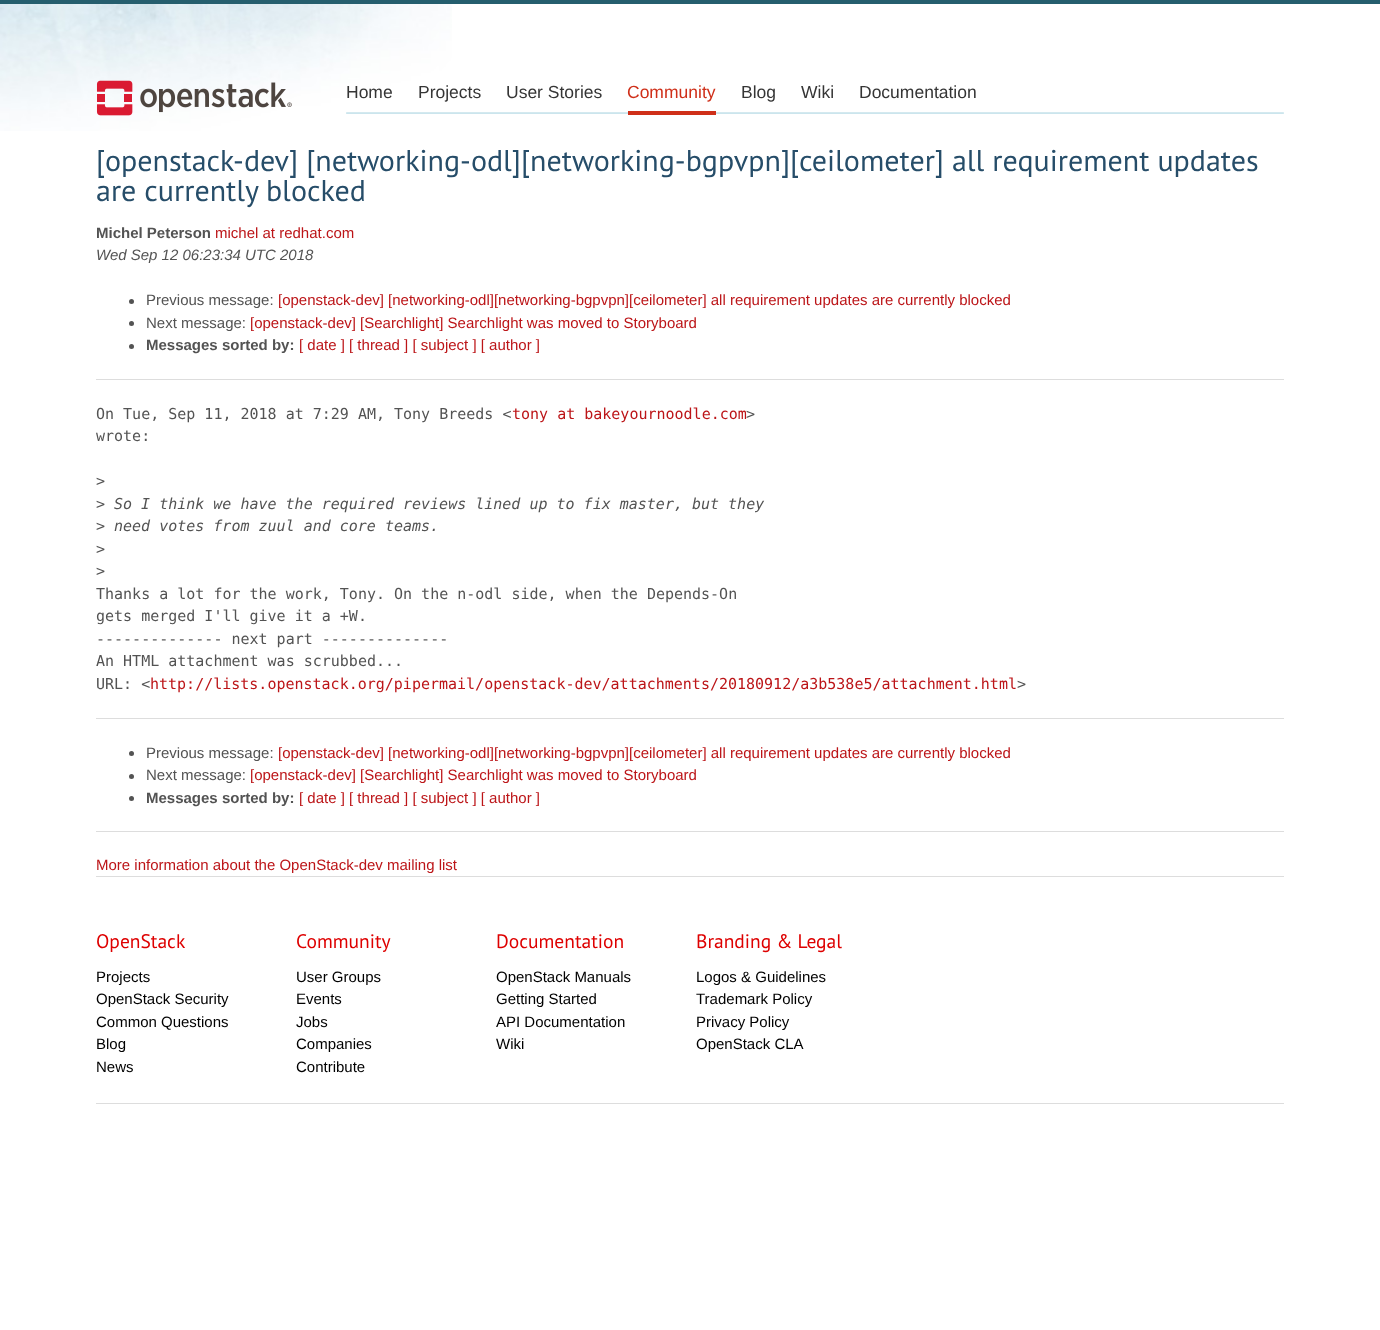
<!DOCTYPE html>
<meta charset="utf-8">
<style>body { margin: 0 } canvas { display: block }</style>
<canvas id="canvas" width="1380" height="1330"></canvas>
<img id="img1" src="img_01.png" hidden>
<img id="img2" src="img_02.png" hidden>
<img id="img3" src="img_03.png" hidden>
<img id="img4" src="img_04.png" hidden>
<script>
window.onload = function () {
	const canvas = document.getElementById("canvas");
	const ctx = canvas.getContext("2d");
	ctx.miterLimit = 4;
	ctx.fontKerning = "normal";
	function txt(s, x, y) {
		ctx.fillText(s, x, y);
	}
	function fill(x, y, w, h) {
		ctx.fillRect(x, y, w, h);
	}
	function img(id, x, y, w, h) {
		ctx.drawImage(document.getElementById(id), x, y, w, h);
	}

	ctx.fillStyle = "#FFFFFF";
	fill(0, 0, 1380, 1330);
	img("img1", 0, 4, 452, 127);
	ctx.fillStyle = "#255E6E";
	fill(0, 0, 1380, 4);
	img("img2", 96, 80, 196, 36);
	img("img3", 346, 112, 938, 2);
	img("img4", 346, 112, 938, 2);
	ctx.fillStyle = "#CF2F19";
	fill(628, 111, 88, 4);
	ctx.fillStyle = "#535353";
	ctx.beginPath();
	ctx.arc(131.5, 301.5, 2.5, 0, Math.PI * 2);
	ctx.fill();
	ctx.beginPath();
	ctx.arc(131.5, 323.5, 2.5, 0, Math.PI * 2);
	ctx.fill();
	ctx.beginPath();
	ctx.arc(131.5, 346.5, 2.5, 0, Math.PI * 2);
	ctx.fill();
	ctx.fillStyle = "#DDDDDD";
	fill(96, 379, 1188, 1);
	fill(96, 718, 1188, 1);
	ctx.fillStyle = "#535353";
	ctx.beginPath();
	ctx.arc(131.5, 753.5, 2.5, 0, Math.PI * 2);
	ctx.fill();
	ctx.beginPath();
	ctx.arc(131.5, 776.5, 2.5, 0, Math.PI * 2);
	ctx.fill();
	ctx.beginPath();
	ctx.arc(131.5, 798.5, 2.5, 0, Math.PI * 2);
	ctx.fill();
	ctx.fillStyle = "#DDDDDD";
	fill(96, 831, 1188, 1);
	fill(96, 876, 1188, 1);
	fill(96, 1103, 1188, 1);
	ctx.font = "17.5px Liberation Sans";
	ctx.fillStyle = "#353535";
	txt("Home", 346, 98);
	txt("Projects", 418, 98);
	txt("User Stories", 506, 98);
	ctx.fillStyle = "#CF2F19";
	txt("Community", 627, 98);
	ctx.fillStyle = "#353535";
	txt("Blog", 741, 98);
	txt("Wiki", 801, 98);
	txt("Documentation", 859, 98);
	ctx.font = "30px PT Sans";
	ctx.fillStyle = "#264D69";
	txt("[openstack-dev] [networking-odl][networking-bgpvpn][ceilometer] all requirement updates", 96, 171);
	txt("are currently blocked", 96, 201);
	ctx.font = "bold 15px Liberation Sans";
	ctx.fillStyle = "#535353";
	txt("Michel Peterson", 96, 238);
	ctx.font = "15px Liberation Sans";
	ctx.fillStyle = "#BC1518";
	txt("michel at redhat.com", 215, 238);
	ctx.font = "italic 15px Liberation Sans";
	ctx.fillStyle = "#535353";
	txt("Wed Sep 12 06:23:34 UTC 2018", 96, 260);
	ctx.font = "15px Liberation Sans";
	txt("Previous message:", 146, 305);
	ctx.fillStyle = "#BC1518";
	txt("[openstack-dev] [networking-odl][networking-bgpvpn][ceilometer] all requirement updates are currently blocked", 278, 305);
	ctx.fillStyle = "#535353";
	txt("Next message:", 146, 328);
	ctx.fillStyle = "#BC1518";
	txt("[openstack-dev] [Searchlight] Searchlight was moved to Storyboard", 250, 328);
	ctx.font = "bold 15px Liberation Sans";
	ctx.fillStyle = "#535353";
	txt("Messages sorted by:", 146, 350);
	ctx.font = "15px Liberation Sans";
	ctx.fillStyle = "#BC1518";
	txt("[ date ] [ thread ] [ subject ] [ author ]", 299, 350);
	ctx.font = "15px DejaVu Sans Mono";
	ctx.fillStyle = "#535353";
	txt("On Tue, Sep 11, 2018 at 7:29 AM, Tony Breeds <", 96, 419);
	ctx.fillStyle = "#BC1518";
	txt("tony at bakeyournoodle.com", 512, 419);
	ctx.fillStyle = "#535353";
	txt(">", 746, 419);
	txt("wrote:", 96, 441);
	txt(">", 96, 486);
	txt(">", 96, 509);
	ctx.font = "italic 15px DejaVu Sans Mono";
	txt("So I think we have the required reviews lined up to fix master, but they", 114, 509);
	ctx.font = "15px DejaVu Sans Mono";
	txt(">", 96, 531);
	ctx.font = "italic 15px DejaVu Sans Mono";
	txt("need votes from zuul and core teams.", 114, 531);
	ctx.font = "15px DejaVu Sans Mono";
	txt(">", 96, 554);
	txt(">", 96, 576);
	txt("Thanks a lot for the work, Tony. On the n-odl side, when the Depends-On", 96, 599);
	txt("gets merged I'll give it a +W.", 96, 621);
	txt("-------------- next part --------------", 96, 644);
	txt("An HTML attachment was scrubbed...", 96, 666);
	txt("URL: <", 96, 689);
	ctx.fillStyle = "#BC1518";
	txt("http://lists.openstack.org/pipermail/openstack-dev/attachments/20180912/a3b538e5/attachment.html", 150, 689);
	ctx.fillStyle = "#535353";
	txt(">", 1017, 689);
	ctx.font = "15px Liberation Sans";
	txt("Previous message:", 146, 758);
	ctx.fillStyle = "#BC1518";
	txt("[openstack-dev] [networking-odl][networking-bgpvpn][ceilometer] all requirement updates are currently blocked", 278, 758);
	ctx.fillStyle = "#535353";
	txt("Next message:", 146, 780);
	ctx.fillStyle = "#BC1518";
	txt("[openstack-dev] [Searchlight] Searchlight was moved to Storyboard", 250, 780);
	ctx.font = "bold 15px Liberation Sans";
	ctx.fillStyle = "#535353";
	txt("Messages sorted by:", 146, 803);
	ctx.font = "15px Liberation Sans";
	ctx.fillStyle = "#BC1518";
	txt("[ date ] [ thread ] [ subject ] [ author ]", 299, 803);
	txt("More information about the OpenStack-dev mailing list", 96, 870);
	ctx.font = "19.5px PT Sans";
	ctx.fillStyle = "#DE0000";
	txt("OpenStack", 96, 948);
	ctx.font = "15px Liberation Sans";
	ctx.fillStyle = "#000000";
	txt("Projects", 96, 982);
	txt("OpenStack Security", 96, 1004);
	txt("Common Questions", 96, 1027);
	txt("Blog", 96, 1049);
	txt("News", 96, 1072);
	ctx.font = "19.5px PT Sans";
	ctx.fillStyle = "#DE0000";
	txt("Community", 296, 948);
	ctx.font = "15px Liberation Sans";
	ctx.fillStyle = "#000000";
	txt("User Groups", 296, 982);
	txt("Events", 296, 1004);
	txt("Jobs", 296, 1027);
	txt("Companies", 296, 1049);
	txt("Contribute", 296, 1072);
	ctx.font = "19.5px PT Sans";
	ctx.fillStyle = "#DE0000";
	txt("Documentation", 496, 948);
	ctx.font = "15px Liberation Sans";
	ctx.fillStyle = "#000000";
	txt("OpenStack Manuals", 496, 982);
	txt("Getting Started", 496, 1004);
	txt("API Documentation", 496, 1027);
	txt("Wiki", 496, 1049);
	ctx.font = "19.5px PT Sans";
	ctx.fillStyle = "#DE0000";
	txt("Branding & Legal", 696, 948);
	ctx.font = "15px Liberation Sans";
	ctx.fillStyle = "#000000";
	txt("Logos & Guidelines", 696, 982);
	txt("Trademark Policy", 696, 1004);
	txt("Privacy Policy", 696, 1027);
	txt("OpenStack CLA", 696, 1049);
};
</script>
